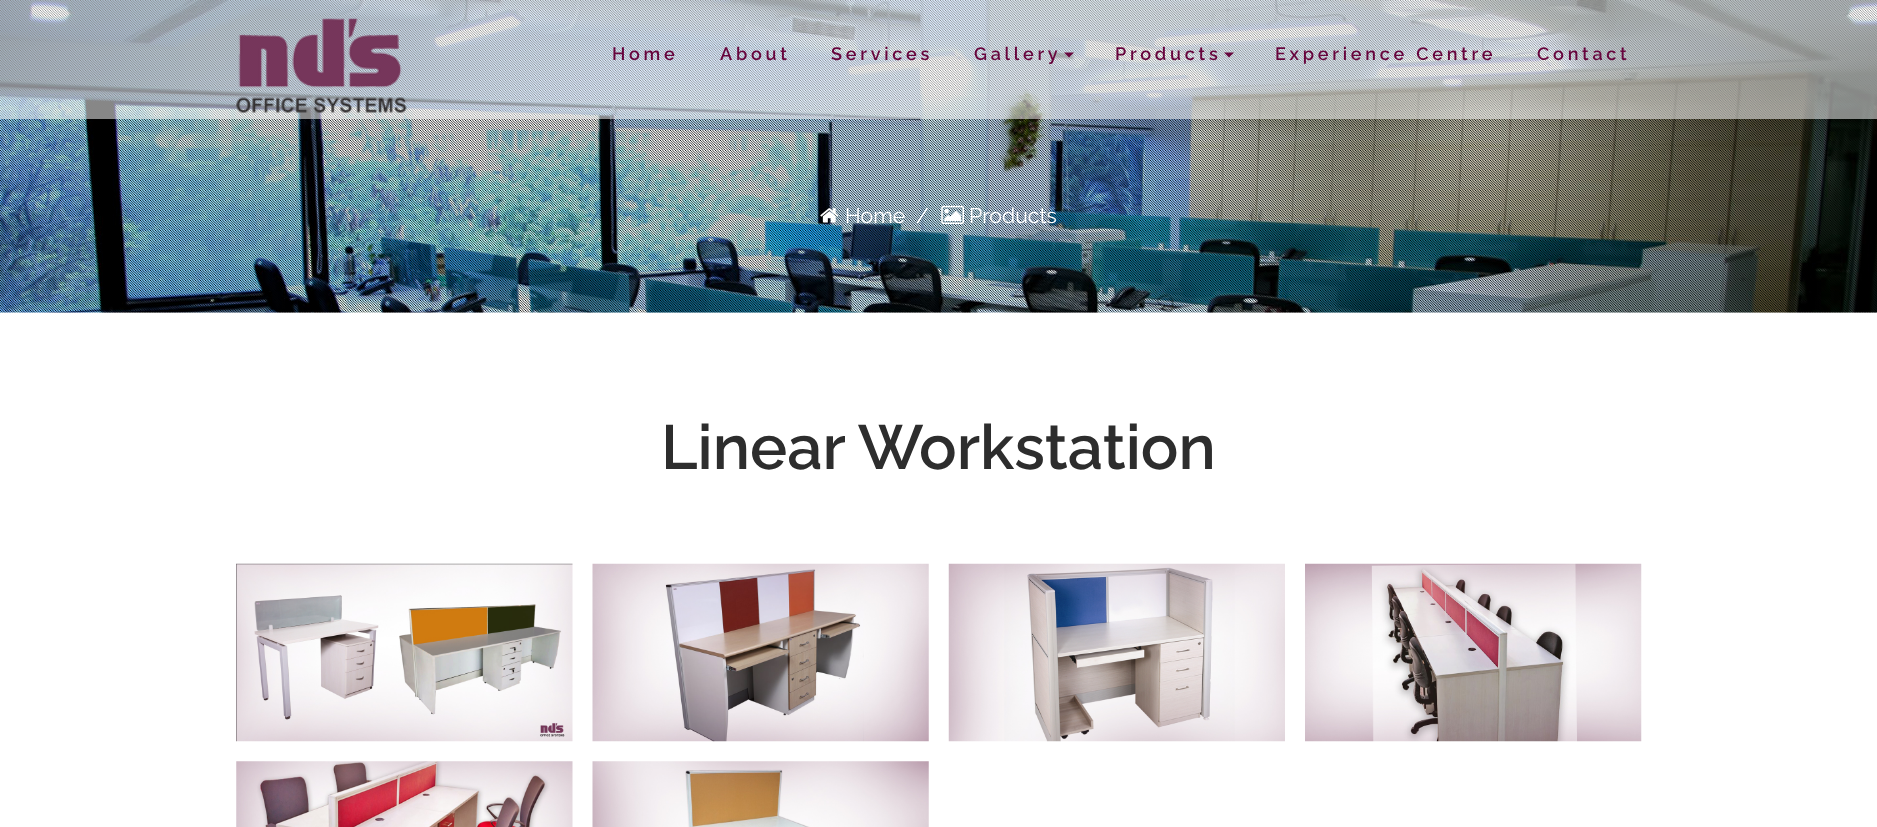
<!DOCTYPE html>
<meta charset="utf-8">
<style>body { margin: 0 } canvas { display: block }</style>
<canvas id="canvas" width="1877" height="827"></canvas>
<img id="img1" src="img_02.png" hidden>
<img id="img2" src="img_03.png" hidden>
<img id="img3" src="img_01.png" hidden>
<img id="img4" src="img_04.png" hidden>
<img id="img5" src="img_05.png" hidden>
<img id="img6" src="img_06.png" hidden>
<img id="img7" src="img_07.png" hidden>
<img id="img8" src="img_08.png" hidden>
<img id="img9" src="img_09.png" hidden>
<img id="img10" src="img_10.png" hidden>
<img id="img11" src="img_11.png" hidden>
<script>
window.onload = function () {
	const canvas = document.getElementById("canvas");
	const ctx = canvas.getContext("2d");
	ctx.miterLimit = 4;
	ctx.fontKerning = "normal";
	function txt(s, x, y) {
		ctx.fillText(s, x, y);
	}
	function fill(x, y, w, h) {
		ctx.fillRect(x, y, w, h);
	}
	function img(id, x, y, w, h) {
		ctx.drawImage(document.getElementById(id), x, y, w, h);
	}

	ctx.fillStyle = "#FFFFFF";
	fill(0, 0, 1877, 827);
	img("img1", 0, 0, 1877, 313);
	img("img2", 0, 0, 1877, 313);
	ctx.fillStyle = "rgba(255, 255, 255, 0.53)";
	fill(0, 0, 1877, 119);
	img("img3", 236, 18, 171, 95);
	ctx.fillStyle = "#67053D";
	ctx.beginPath();
	ctx.moveTo(1064, 52.5);
	ctx.lineTo(1074, 52.5);
	ctx.lineTo(1069, 57.5);
	ctx.closePath();
	ctx.fill();
	ctx.beginPath();
	ctx.moveTo(1224, 52.5);
	ctx.lineTo(1234, 52.5);
	ctx.lineTo(1229, 57.5);
	ctx.closePath();
	ctx.fill();
	img("img4", 820, 208, 19, 15);
	img("img5", 941, 205, 23, 19);
	img("img6", 236, 563, 337, 179);
	img("img7", 592, 563, 337, 179);
	img("img8", 948, 563, 337, 179);
	img("img9", 1305, 563, 337, 179);
	img("img10", 236, 761, 337, 66);
	img("img11", 592, 761, 337, 66);
	ctx.letterSpacing = "3.75px";
	ctx.font = "600 18px Raleway";
	txt("Home", 612, 60);
	txt("About", 720, 60);
	txt("Services", 831, 60);
	txt("Gallery", 974, 60);
	txt("Products", 1115, 60);
	txt("Experience Centre", 1275, 60);
	txt("Contact", 1537, 60);
	ctx.letterSpacing = "0px";
	ctx.font = "21.25px Raleway";
	ctx.fillStyle = "#FFFFFF";
	txt("Home", 845, 223);
	txt("/", 916, 223);
	txt("Products", 969, 223);
	ctx.font = "600 62.5px Raleway";
	ctx.fillStyle = "#2D2D2D";
	txt("Linear Workstation", 661, 469);
};
</script>
